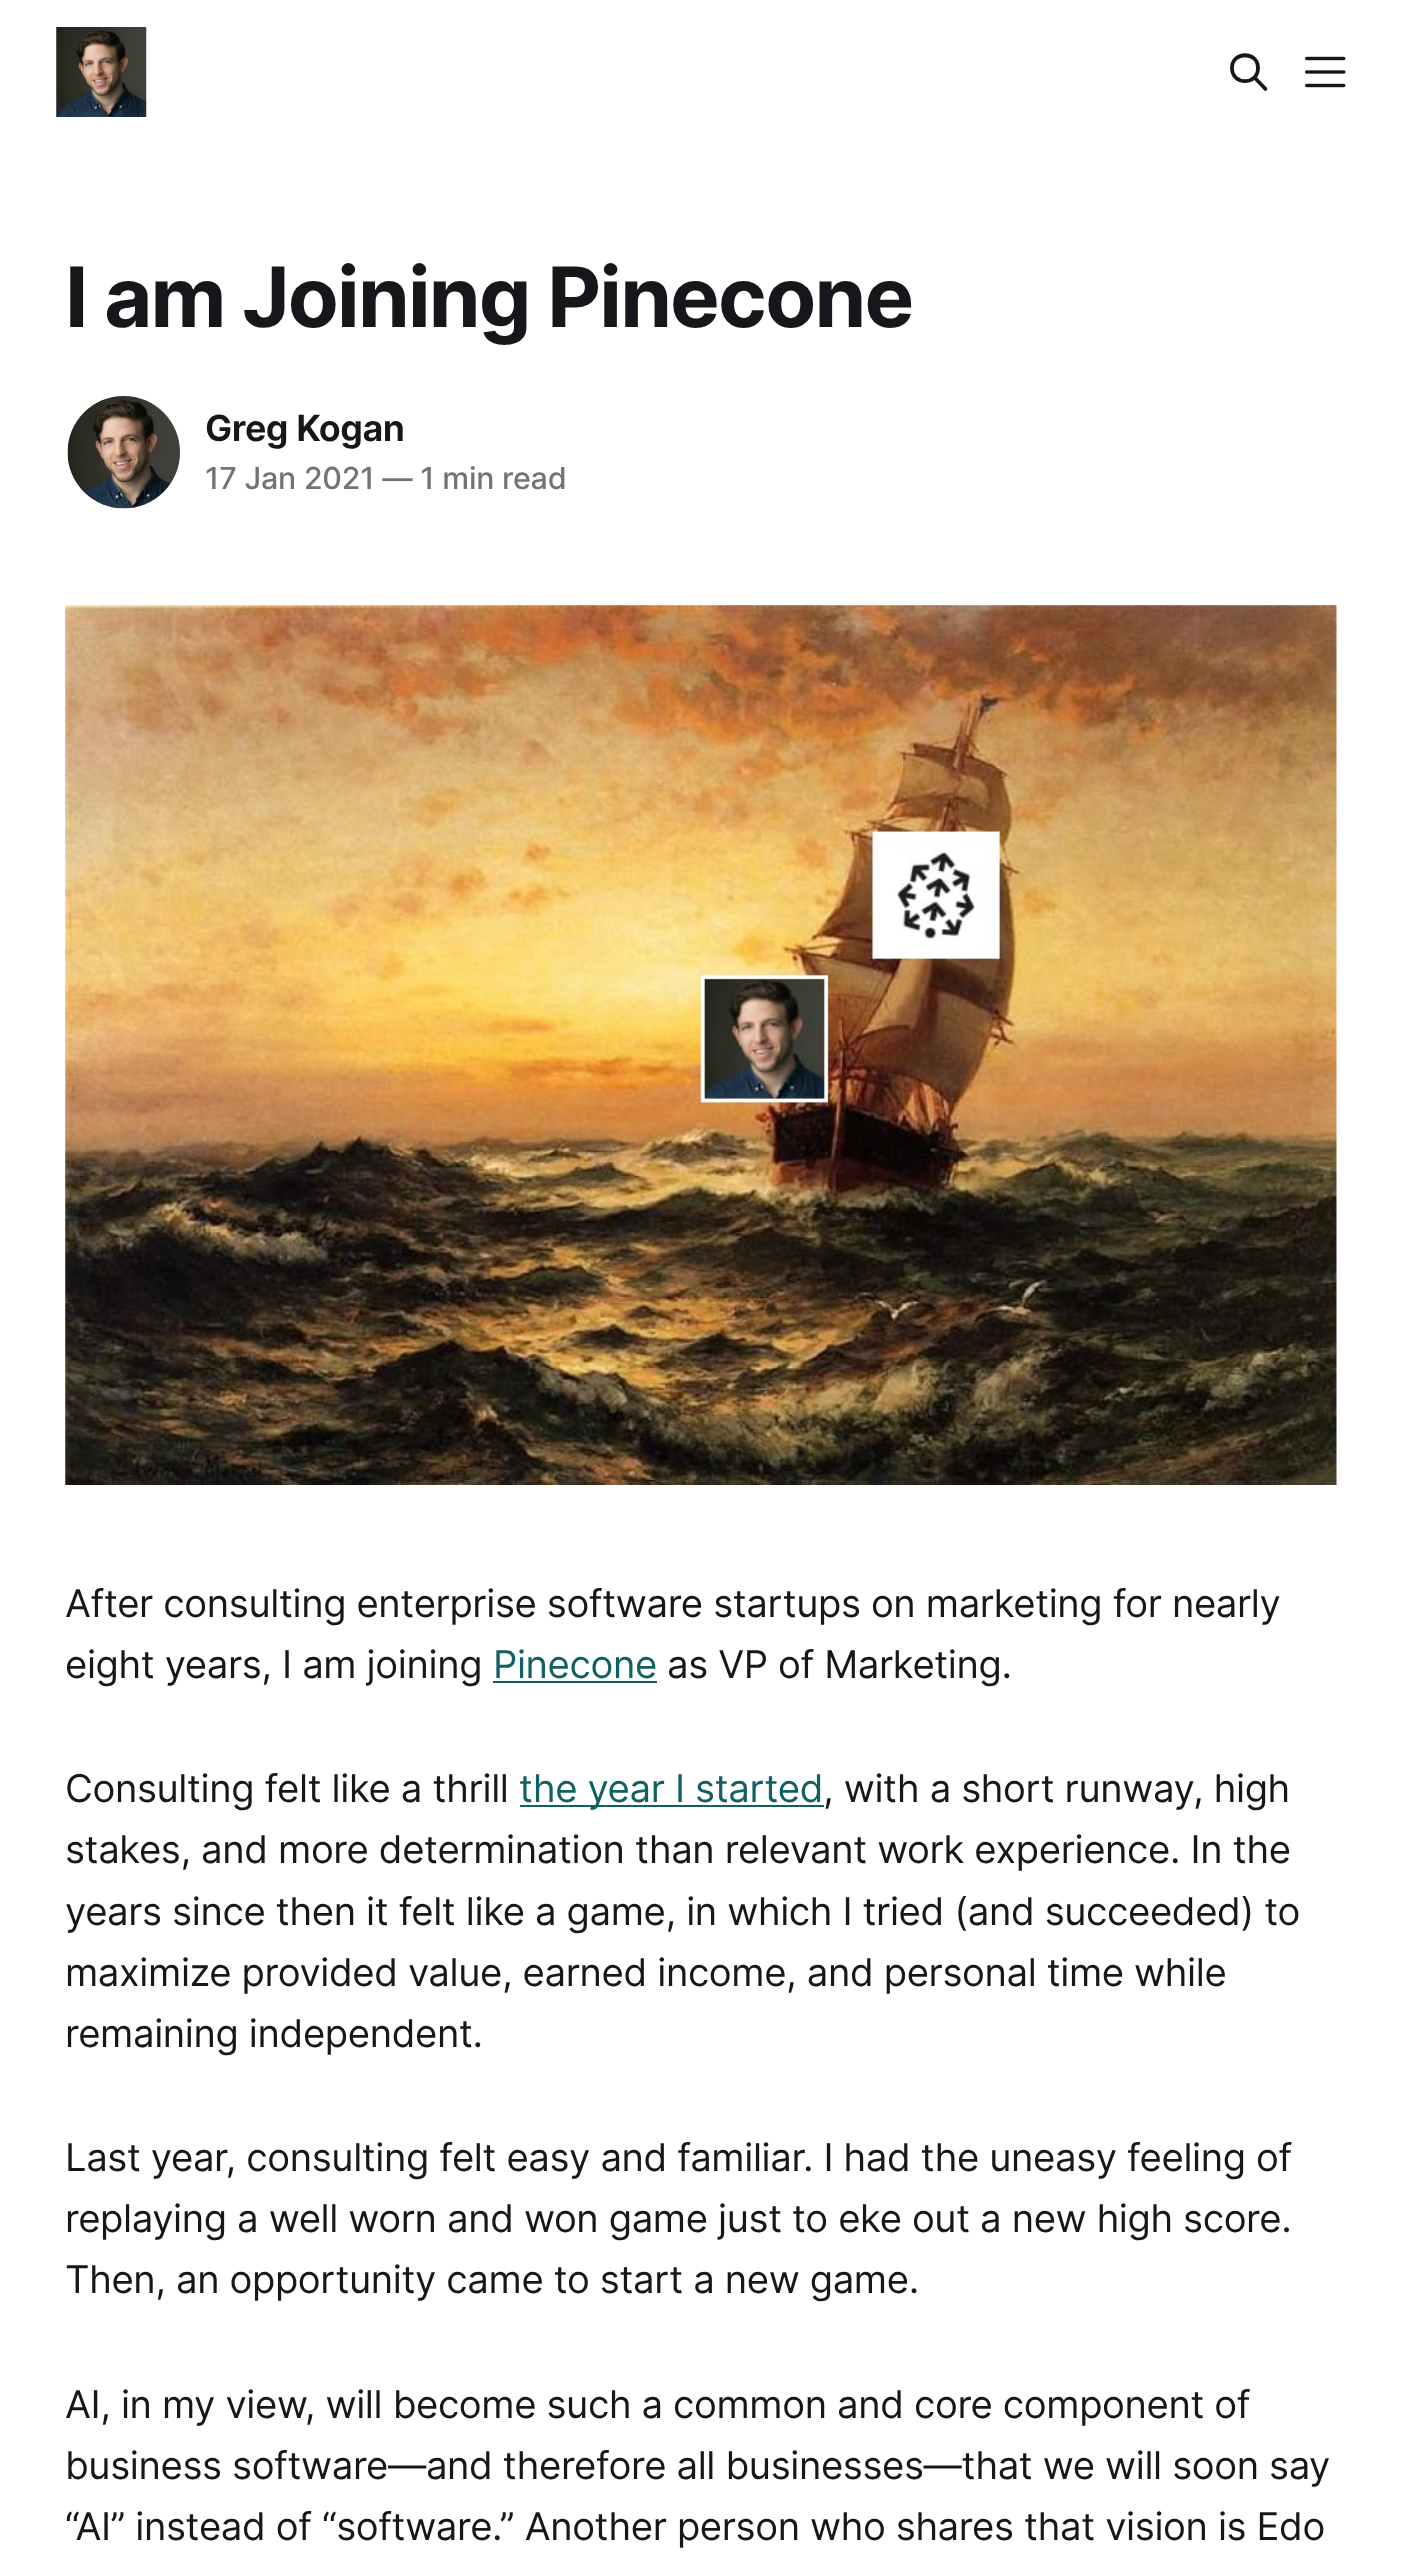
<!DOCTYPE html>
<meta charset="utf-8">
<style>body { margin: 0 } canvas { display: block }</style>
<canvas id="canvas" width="1401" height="2571"></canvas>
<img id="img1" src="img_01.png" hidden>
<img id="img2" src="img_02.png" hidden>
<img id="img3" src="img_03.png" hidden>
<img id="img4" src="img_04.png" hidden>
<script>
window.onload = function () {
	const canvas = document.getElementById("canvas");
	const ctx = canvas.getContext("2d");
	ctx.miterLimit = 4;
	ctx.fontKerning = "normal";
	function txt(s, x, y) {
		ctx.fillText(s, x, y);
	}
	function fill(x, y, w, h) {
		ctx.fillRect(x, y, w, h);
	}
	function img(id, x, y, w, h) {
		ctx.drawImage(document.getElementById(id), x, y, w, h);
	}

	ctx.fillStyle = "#FFFFFF";
	fill(0, 0, 1401, 2571);
	img("img1", 56, 27, 91, 90);
	ctx.beginPath();
	ctx.moveTo(1265.5, 89);
	ctx.lineTo(1254.5, 77.5);
	ctx.moveTo(1258, 68);
	ctx.bezierCurveTo(1258, 85.5, 1232, 85.5, 1232, 68);
	ctx.bezierCurveTo(1232, 51, 1258, 51, 1258, 68);
	ctx.closePath();
	ctx.strokeStyle = "#15171A";
	ctx.lineWidth = 3.8;
	ctx.lineCap = "round";
	ctx.lineJoin = "round";
	ctx.stroke();
	img("img2", 1305, 56, 41, 32);
	ctx.fillStyle = "#E6E6E6";
	ctx.beginPath();
	ctx.arc(124, 452, 59.5, 0, Math.PI * 2);
	ctx.fill();
	ctx.strokeStyle = "#FFFFFF";
	ctx.lineWidth = 7;
	ctx.stroke();
	img("img3", 67, 396, 113, 113);
	img("img4", 65, 605, 1272, 880);
	ctx.fillStyle = "#126162";
	fill(493, 1681, 164, 2);
	fill(520, 1805, 304, 2);
	ctx.letterSpacing = "-1.8px";
	ctx.font = "bold 83.25px Inter";
	ctx.fillStyle = "#15171A";
	txt("I am Joining Pinecone", 65, 327);
	ctx.letterSpacing = "-0.5px";
	ctx.font = "600 36px Inter";
	txt("Greg Kogan", 205, 441);
	ctx.letterSpacing = "-0.2px";
	ctx.font = "500 30.4px Inter";
	ctx.fillStyle = "#737373";
	txt("17 Jan 2021 — 1 min read", 205, 489);
	ctx.letterSpacing = "-0.38px";
	ctx.font = "38.25px Inter";
	ctx.fillStyle = "#15171A";
	txt("After consulting enterprise software startups on marketing for nearly", 65, 1617);
	txt("eight years, I am joining", 65, 1678);
	ctx.fillStyle = "#126162";
	txt("Pinecone", 493, 1678);
	ctx.fillStyle = "#15171A";
	txt("as VP of Marketing.", 667, 1678);
	txt("Consulting felt like a thrill", 65, 1802);
	ctx.fillStyle = "#126162";
	txt("the year I started", 519, 1802);
	ctx.fillStyle = "#15171A";
	txt(", with a short runway, high", 823, 1802);
	txt("stakes, and more determination than relevant work experience. In the", 65, 1863);
	txt("years since then it felt like a game, in which I tried (and succeeded) to", 65, 1925);
	txt("maximize provided value, earned income, and personal time while", 65, 1986);
	txt("remaining independent.", 65, 2047);
	txt("Last year, consulting felt easy and familiar. I had the uneasy feeling of", 65, 2171);
	txt("replaying a well worn and won game just to eke out a new high score.", 65, 2232);
	txt("Then, an opportunity came to start a new game.", 65, 2293);
	txt("AI, in my view, will become such a common and core component of", 65, 2418);
	txt("business software—and therefore all businesses—that we will soon say", 65, 2479);
	txt("“AI” instead of “software.” Another person who shares that vision is Edo", 65, 2540);
};
</script>
